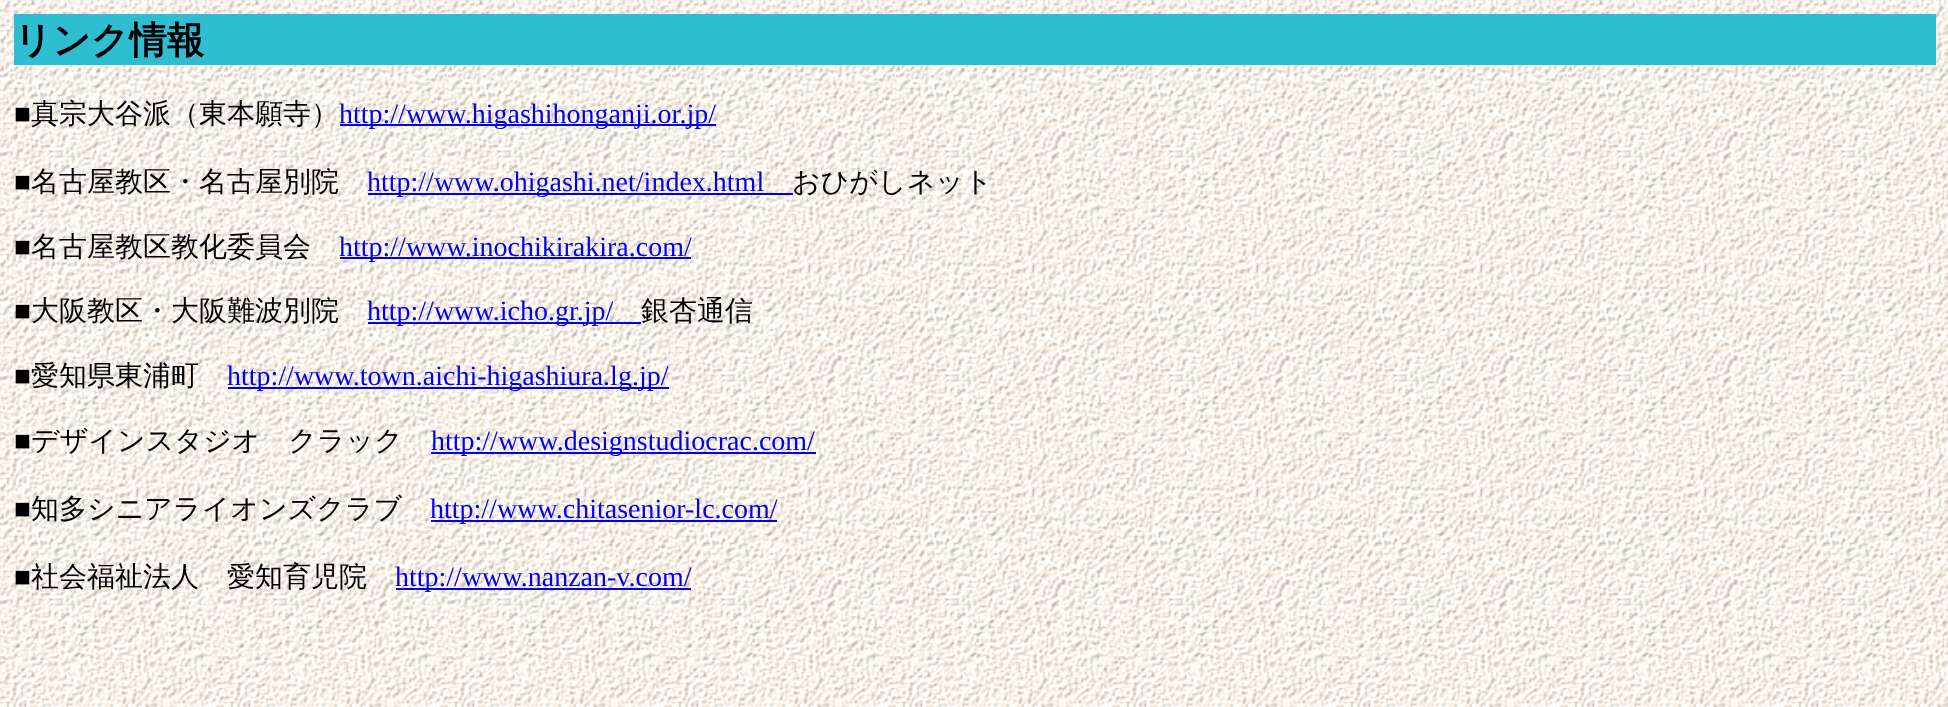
<!DOCTYPE html>
<meta charset="utf-8">
<style>body { margin: 0 } canvas { display: block }</style>
<canvas id="canvas" width="1948" height="707"></canvas>
<img id="img1" src="img_01.png" hidden>
<script>
window.onload = function () {
	const canvas = document.getElementById("canvas");
	const ctx = canvas.getContext("2d");
	ctx.miterLimit = 4;
	ctx.fontKerning = "normal";
	function txt(s, x, y) {
		ctx.fillText(s, x, y);
	}
	function fill(x, y, w, h) {
		ctx.fillRect(x, y, w, h);
	}
	function img(id, x, y, w, h) {
		ctx.drawImage(document.getElementById(id), x, y, w, h);
	}

	ctx.fillStyle = "#FFFFFF";
	fill(0, 0, 1948, 707);
	img("img1", 0, 0, 1948, 707);
	ctx.fillStyle = "#2EBDD1";
	fill(14, 14, 1922, 51);
	ctx.fillStyle = "#0000EE";
	fill(340, 124, 376, 2);
	fill(368, 193, 425, 2);
	fill(340, 257, 351, 2);
	fill(368, 322, 273, 2);
	fill(228, 387, 441, 2);
	fill(431, 452, 385, 2);
	fill(431, 520, 346, 2);
	fill(396, 588, 295, 2);
	ctx.font = "bold 37.5px WenQuanYi Zen Hei";
	ctx.fillStyle = "#000000";
	txt("リンク情報", 14, 53);
	ctx.font = "28px Liberation Serif";
	txt("■", 14, 123);
	ctx.font = "500 28px WenQuanYi Zen Hei";
	txt("真宗大谷派（東本願寺）", 31, 123);
	ctx.font = "28px Liberation Serif";
	ctx.fillStyle = "#0000EE";
	txt("http://www.higashihonganji.or.jp/", 339, 123);
	ctx.fillStyle = "#000000";
	txt("■", 14, 191);
	ctx.font = "500 28px WenQuanYi Zen Hei";
	txt("名古屋教区・名古屋別院", 31, 191);
	ctx.font = "28px Liberation Serif";
	ctx.fillStyle = "#0000EE";
	txt("http://www.ohigashi.net/index.html", 367, 191);
	ctx.font = "500 28px WenQuanYi Zen Hei";
	ctx.fillStyle = "#000000";
	txt("おひがしネット", 792, 191);
	ctx.font = "28px Liberation Serif";
	txt("■", 14, 256);
	ctx.font = "500 28px WenQuanYi Zen Hei";
	txt("名古屋教区教化委員会", 31, 256);
	ctx.font = "28px Liberation Serif";
	ctx.fillStyle = "#0000EE";
	txt("http://www.inochikirakira.com/", 339, 256);
	ctx.fillStyle = "#000000";
	txt("■", 14, 320);
	ctx.font = "500 28px WenQuanYi Zen Hei";
	txt("大阪教区・大阪難波別院", 31, 320);
	ctx.font = "28px Liberation Serif";
	ctx.fillStyle = "#0000EE";
	txt("http://www.icho.gr.jp/", 367, 320);
	ctx.font = "500 28px WenQuanYi Zen Hei";
	ctx.fillStyle = "#000000";
	txt("銀杏通信", 641, 320);
	ctx.font = "28px Liberation Serif";
	txt("■", 14, 385);
	ctx.font = "500 28px WenQuanYi Zen Hei";
	txt("愛知県東浦町", 31, 385);
	ctx.font = "28px Liberation Serif";
	ctx.fillStyle = "#0000EE";
	txt("http://www.town.aichi-higashiura.lg.jp/", 227, 385);
	ctx.fillStyle = "#000000";
	txt("■", 14, 450);
	ctx.font = "500 28px WenQuanYi Zen Hei";
	txt("デザインスタジオ　クラック", 31, 450);
	ctx.font = "28px Liberation Serif";
	ctx.fillStyle = "#0000EE";
	txt("http://www.designstudiocrac.com/", 431, 450);
	ctx.fillStyle = "#000000";
	txt("■", 14, 518);
	ctx.font = "500 28px WenQuanYi Zen Hei";
	txt("知多シニアライオンズクラブ", 31, 518);
	ctx.font = "28px Liberation Serif";
	ctx.fillStyle = "#0000EE";
	txt("http://www.chitasenior-lc.com/", 430, 518);
	ctx.fillStyle = "#000000";
	txt("■", 14, 586);
	ctx.font = "500 28px WenQuanYi Zen Hei";
	txt("社会福祉法人　愛知育児院", 31, 586);
	ctx.font = "28px Liberation Serif";
	ctx.fillStyle = "#0000EE";
	txt("http://www.nanzan-v.com/", 395, 586);
};
</script>
